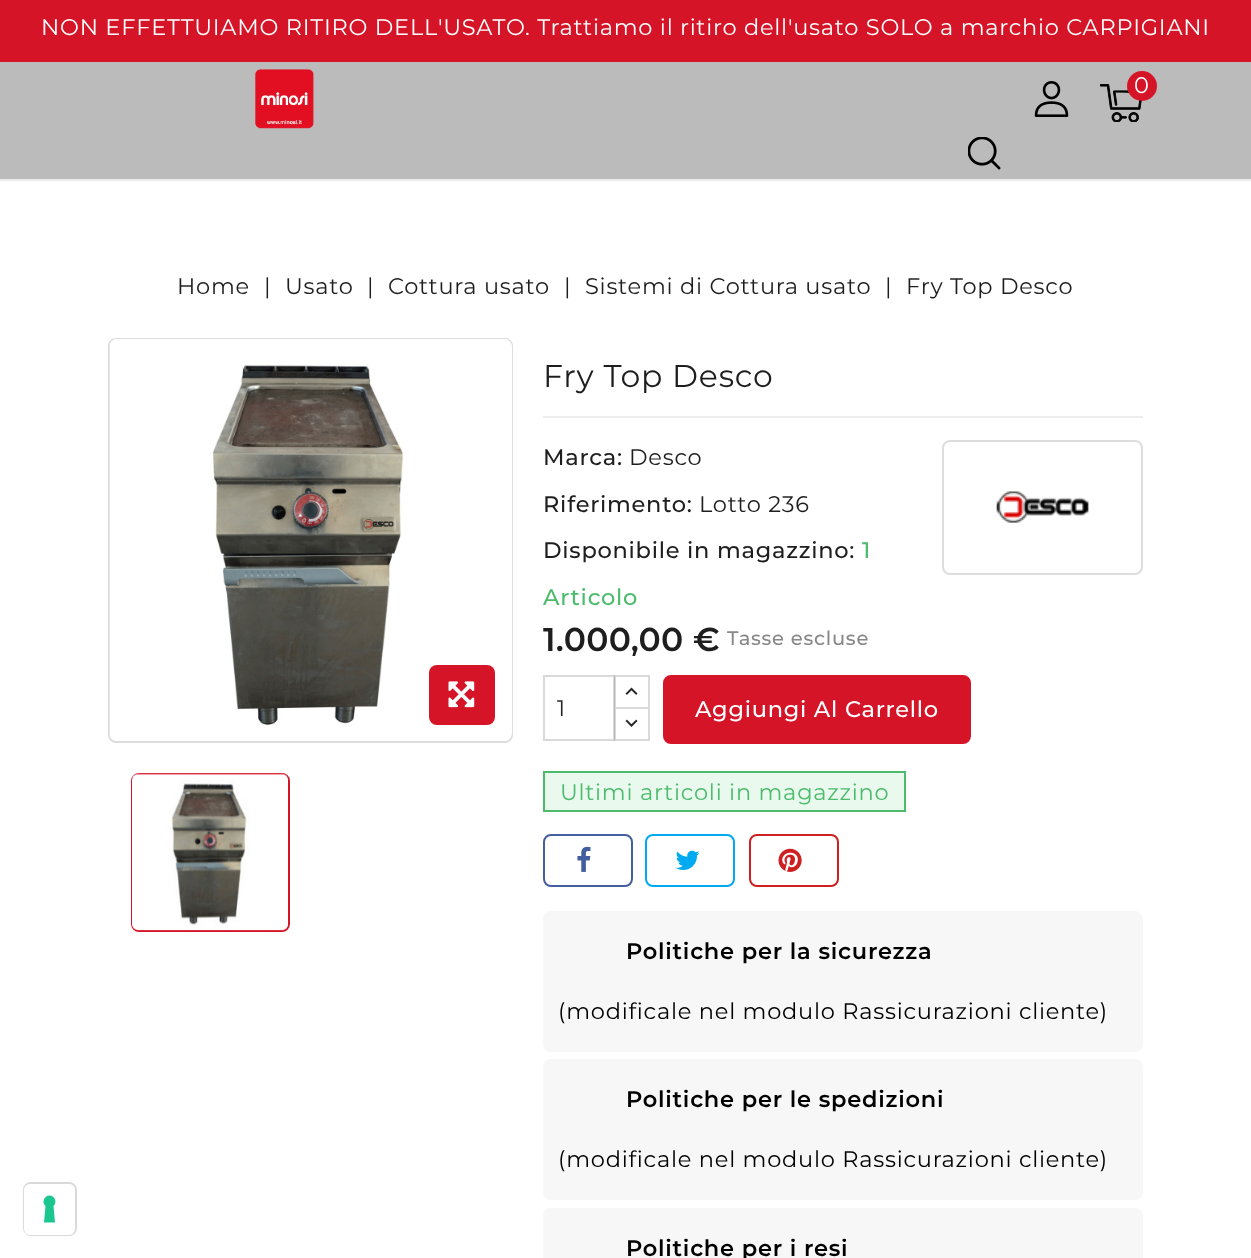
<!DOCTYPE html>
<meta charset="utf-8">
<style>body { margin: 0 } canvas { display: block }</style>
<canvas id="canvas" width="1251" height="1258"></canvas>
<img id="img1" src="img_01.png" hidden>
<img id="img2" src="img_02.png" hidden>
<img id="img3" src="img_03.png" hidden>
<img id="img4" src="img_04.png" hidden>
<img id="img5" src="img_05.png" hidden>
<img id="img6" src="img_06.png" hidden>
<img id="img7" src="img_07.png" hidden>
<img id="img8" src="img_08.png" hidden>
<img id="img9" src="img_09.png" hidden>
<img id="img10" src="img_10.png" hidden>
<img id="img11" src="img_11.png" hidden>
<img id="img12" src="img_12.png" hidden>
<img id="img13" src="img_13.png" hidden>
<script>
window.onload = function () {
	const canvas = document.getElementById("canvas");
	const ctx = canvas.getContext("2d");
	ctx.miterLimit = 4;
	ctx.fontKerning = "normal";
	function txt(s, x, y) {
		ctx.fillText(s, x, y);
	}
	function fill(x, y, w, h) {
		ctx.fillRect(x, y, w, h);
	}
	function round(x, y, w, h, r) {
		ctx.beginPath();
		ctx.roundRect(x, y, w, h, r);
		ctx.fill();
	}
	function img(id, x, y, w, h) {
		ctx.drawImage(document.getElementById(id), x, y, w, h);
	}

	ctx.fillStyle = "#FFFFFF";
	fill(0, 0, 1251, 1258);
	ctx.fillStyle = "#D61427";
	fill(0, 0, 1251, 62);
	ctx.fillStyle = "#BBBBBB";
	fill(0, 62, 1251, 117);
	ctx.fillStyle = "#EBEBEB";
	fill(0, 179, 1251, 2);
	img("img1", 255, 69, 59, 60);
	img("img2", 1034, 81, 35, 36);
	img("img3", 1100, 84, 42, 38);
	ctx.fillStyle = "#D61427";
	ctx.beginPath();
	ctx.arc(1142, 86, 15, 0, Math.PI * 2);
	ctx.fill();
	img("img4", 968, 137, 33, 33);
	ctx.beginPath();
	ctx.roundRect(109, 339, 403, 403, 7);
	ctx.strokeStyle = "#DDDDDD";
	ctx.lineWidth = 2;
	ctx.stroke();
	ctx.fillStyle = "#FFFFFF";
	round(110, 339, 402, 402, 8);
	img("img5", 109, 339, 401, 398);
	ctx.fillStyle = "#D61427";
	round(429, 665, 66, 60, 8);
	img("img6", 448, 681, 27, 27);
	ctx.beginPath();
	ctx.roundRect(132, 774, 157, 157, 7);
	ctx.strokeStyle = "#D61427";
	ctx.stroke();
	img("img7", 132, 773, 156, 158);
	ctx.fillStyle = "#EDEDED";
	fill(543, 416, 600, 2);
	ctx.beginPath();
	ctx.roundRect(943, 441, 199, 133, 7);
	ctx.strokeStyle = "#DDDDDD";
	ctx.stroke();
	img("img8", 996, 491, 93, 32);
	ctx.strokeStyle = "#D9D9D9";
	ctx.strokeRect(615, 676, 34, 33);
	ctx.fillStyle = "#FFFFFF";
	fill(616, 709, 32, 1);
	ctx.strokeRect(615, 708, 34, 32);
	ctx.strokeStyle = "rgba(0, 0, 0, 0.15)";
	ctx.strokeRect(544, 676, 70, 64);
	img("img9", 625, 687, 13, 8);
	img("img10", 625, 719, 13, 8);
	ctx.fillStyle = "#D61427";
	ctx.beginPath();
	ctx.roundRect(664, 676, 306, 67, 7);
	ctx.fill();
	ctx.strokeStyle = "#D61427";
	ctx.stroke();
	ctx.fillStyle = "#E9F9EE";
	ctx.beginPath();
	ctx.rect(544, 772, 361, 39);
	ctx.fill();
	ctx.strokeStyle = "#4CBB6C";
	ctx.stroke();
	ctx.beginPath();
	ctx.roundRect(544, 835, 88, 51, 7);
	ctx.strokeStyle = "#435F9F";
	ctx.stroke();
	img("img11", 577, 846, 14, 26);
	ctx.beginPath();
	ctx.roundRect(646, 835, 88, 51, 7);
	ctx.strokeStyle = "#00AAF0";
	ctx.stroke();
	img("img12", 675, 850, 25, 20);
	ctx.beginPath();
	ctx.roundRect(750, 835, 88, 51, 7);
	ctx.strokeStyle = "#CE1F21";
	ctx.stroke();
	img("img13", 778, 848, 24, 24);
	ctx.fillStyle = "#F7F7F7";
	round(543, 911, 600, 141, 8);
	round(543, 1059, 600, 141, 8);
	round(543, 1208, 600, 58, 8);
	ctx.beginPath();
	ctx.roundRect(24, 1183, 52, 52, 7);
	ctx.strokeStyle = "#D9D9D9";
	ctx.stroke();
	ctx.fillStyle = "#FFFFFF";
	round(24, 1184, 51, 51, 6);
	ctx.fillStyle = "#1CC691";
	ctx.beginPath();
	ctx.moveTo(49.5, 1195.5);
	ctx.bezierCurveTo(55, 1195.5, 57.5, 1202.5, 53.5, 1206);
	ctx.lineTo(55, 1222.5);
	ctx.lineTo(44, 1222.5);
	ctx.lineTo(45.5, 1206);
	ctx.bezierCurveTo(41.5, 1202.5, 44, 1195.5, 49.5, 1195.5);
	ctx.closePath();
	ctx.fill("evenodd");
	ctx.letterSpacing = "0.75px";
	ctx.font = "22.5px Montserrat";
	ctx.fillStyle = "#FFFFFF";
	txt("NON EFFETTUIAMO RITIRO DELL'USATO. Trattiamo il ritiro dell'usato SOLO a marchio CARPIGIANI", 41, 35);
	ctx.letterSpacing = "0px";
	txt("0", 1134, 93);
	ctx.letterSpacing = "0.75px";
	ctx.fillStyle = "#1E1E1E";
	txt("Home", 177, 294);
	txt("|", 264, 294);
	txt("Usato", 285, 294);
	txt("|", 367, 294);
	txt("Cottura usato", 388, 294);
	txt("|", 564, 294);
	txt("Sistemi di Cottura usato", 585, 294);
	txt("|", 885, 294);
	txt("Fry Top Desco", 906, 294);
	ctx.font = "31.5px Montserrat";
	txt("Fry Top Desco", 543, 387);
	ctx.font = "500 22.5px Montserrat";
	txt("Marca:", 543, 465);
	ctx.font = "22.5px Montserrat";
	txt("Desco", 629, 465);
	ctx.font = "500 22.5px Montserrat";
	txt("Riferimento:", 543, 512);
	ctx.font = "22.5px Montserrat";
	txt("Lotto 236", 699, 512);
	ctx.font = "500 22.5px Montserrat";
	txt("Disponibile in magazzino:", 543, 558);
	ctx.fillStyle = "#4CBB6C";
	txt("1", 862, 558);
	txt("Articolo", 543, 605);
	ctx.letterSpacing = "0.25px";
	ctx.font = "600 33px Montserrat";
	ctx.fillStyle = "#1E1E1E";
	txt("1.000,00 €", 543, 651);
	ctx.letterSpacing = "0.75px";
	ctx.font = "500 19.5px Montserrat";
	ctx.fillStyle = "#888888";
	txt("Tasse escluse", 727, 645);
	ctx.letterSpacing = "0px";
	ctx.font = "22.5px Montserrat";
	ctx.fillStyle = "#262626";
	txt("1", 557, 716);
	ctx.letterSpacing = "0.75px";
	ctx.font = "500 22.5px Montserrat";
	ctx.fillStyle = "#FFFFFF";
	txt("Aggiungi Al Carrello", 695, 717);
	ctx.font = "22.5px Montserrat";
	ctx.fillStyle = "#4CBB6C";
	txt("Ultimi articoli in magazzino", 560, 800);
	ctx.font = "600 22.5px Montserrat";
	ctx.fillStyle = "#000000";
	txt("Politiche per la sicurezza", 626, 959);
	ctx.font = "22.5px Montserrat";
	txt("(modificale nel modulo Rassicurazioni cliente)", 558, 1019);
	ctx.font = "600 22.5px Montserrat";
	txt("Politiche per le spedizioni", 626, 1107);
	ctx.font = "22.5px Montserrat";
	txt("(modificale nel modulo Rassicurazioni cliente)", 558, 1167);
	ctx.font = "600 22.5px Montserrat";
	txt("Politiche per i resi", 626, 1256);
};
</script>
